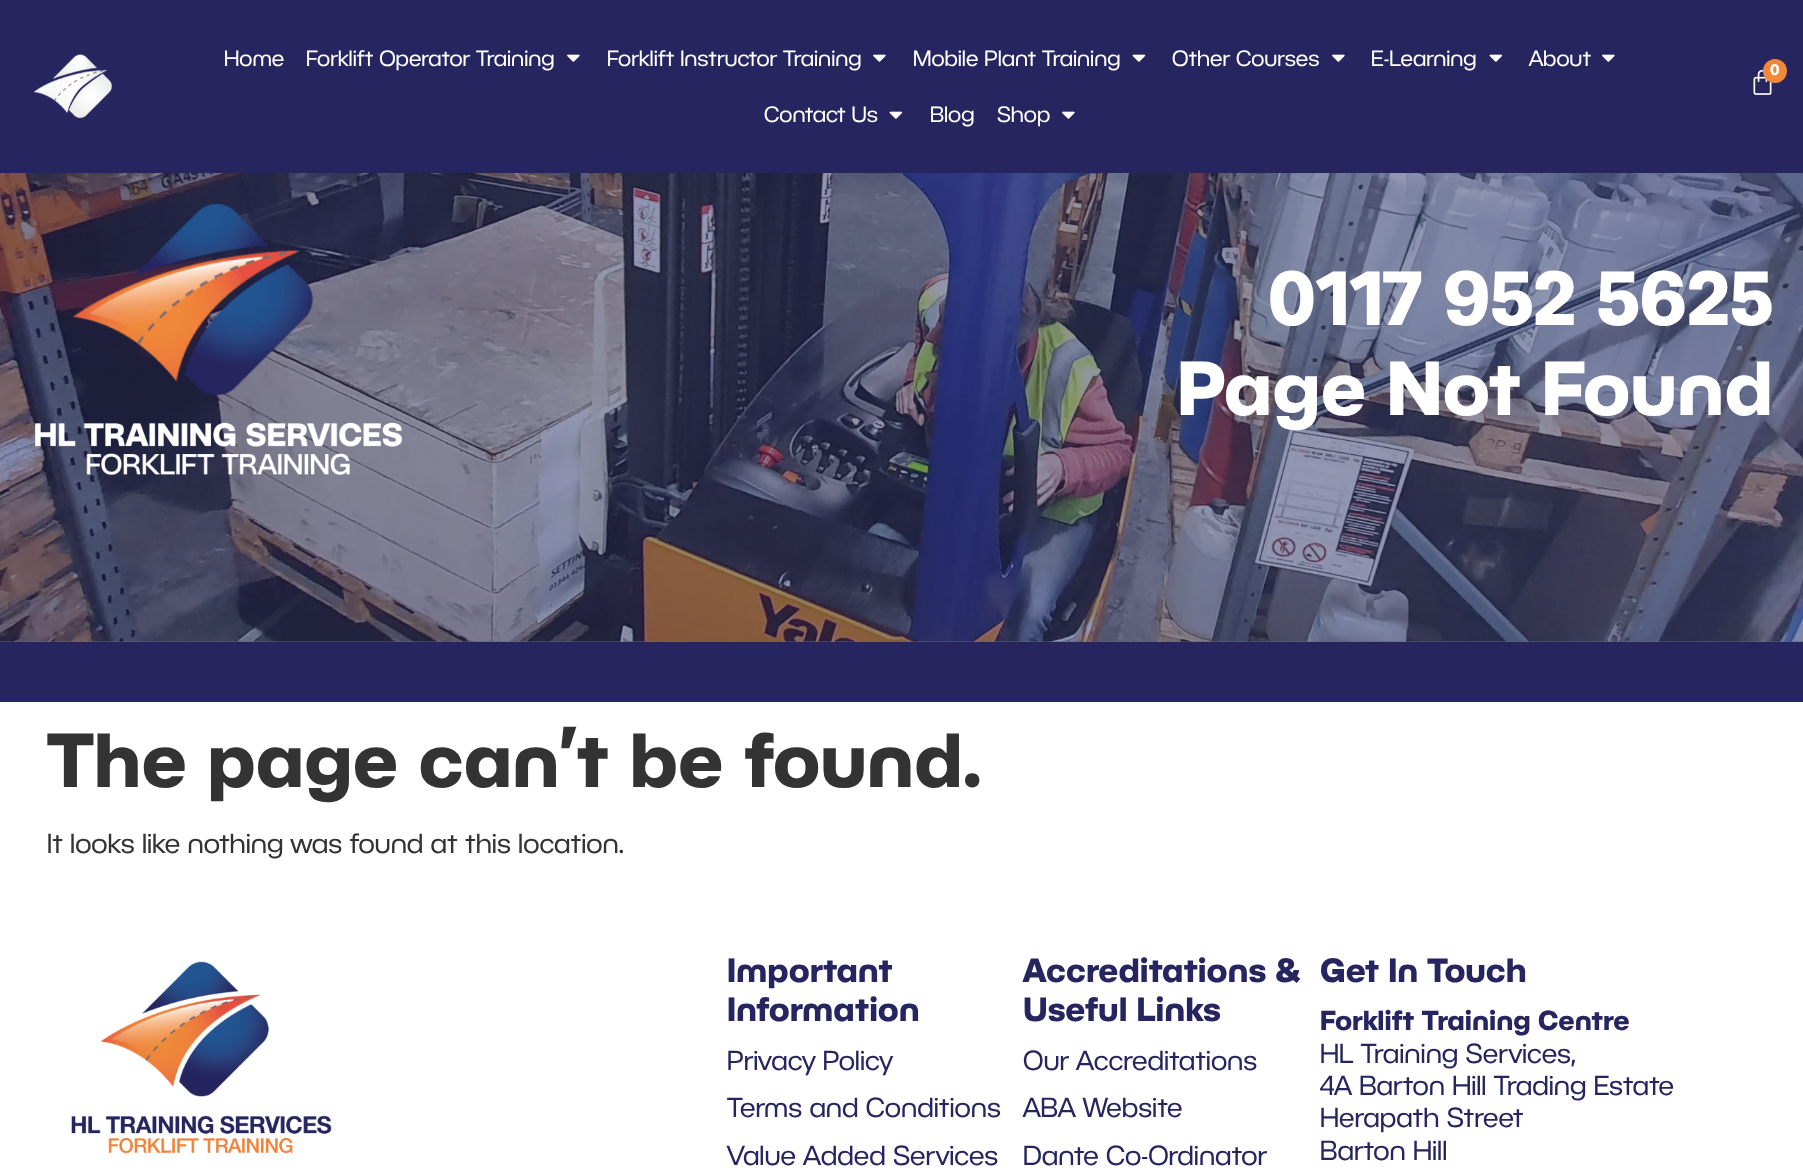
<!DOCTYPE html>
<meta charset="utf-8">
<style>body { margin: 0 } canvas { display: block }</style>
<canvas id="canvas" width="1803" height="1170"></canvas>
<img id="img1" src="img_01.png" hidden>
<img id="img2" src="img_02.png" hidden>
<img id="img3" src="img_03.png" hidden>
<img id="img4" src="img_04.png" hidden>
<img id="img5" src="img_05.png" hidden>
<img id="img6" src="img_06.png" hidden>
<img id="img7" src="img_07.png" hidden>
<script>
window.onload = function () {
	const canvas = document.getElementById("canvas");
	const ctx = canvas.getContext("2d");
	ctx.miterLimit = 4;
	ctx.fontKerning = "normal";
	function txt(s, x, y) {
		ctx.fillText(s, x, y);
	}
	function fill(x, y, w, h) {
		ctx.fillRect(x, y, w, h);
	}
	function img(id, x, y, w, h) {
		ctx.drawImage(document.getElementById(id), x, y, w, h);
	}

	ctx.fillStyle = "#FFFFFF";
	fill(0, 0, 1803, 1170);
	ctx.fillStyle = "#26255F";
	fill(0, 0, 1803, 173);
	img("img1", 33, 54, 79, 65);
	img("img2", 567, 54, 13, 8);
	img("img2", 873, 54, 13, 8);
	img("img3", 1132, 54, 14, 8);
	img("img2", 1332, 54, 13, 8);
	img("img3", 1489, 54, 14, 8);
	img("img2", 1602, 54, 13, 8);
	img("img3", 889, 111, 14, 8);
	img("img2", 1062, 111, 13, 8);
	img("img4", 1753, 69, 19, 26);
	ctx.fillStyle = "#EF8839";
	ctx.beginPath();
	ctx.arc(1775, 71, 12, 0, Math.PI * 2);
	ctx.fill();
	ctx.fillStyle = "#26255F";
	fill(0, 642, 1803, 60);
	ctx.fillStyle = "#5E628C";
	fill(0, 641, 1803, 1);
	img("img5", 0, 173, 1803, 469);
	img("img6", 35, 203, 367, 273);
	img("img7", 71, 961, 261, 193);
	ctx.font = "21.75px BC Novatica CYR";
	ctx.fillStyle = "#FFFFFF";
	txt("Home", 224, 66);
	txt("Forklift Operator Training", 306, 66);
	txt("Forklift Instructor Training", 607, 66);
	txt("Mobile Plant Training", 913, 66);
	txt("Other Courses", 1172, 66);
	txt("E-Learning", 1371, 66);
	txt("About", 1529, 66);
	txt("Contact Us", 764, 122);
	txt("Blog", 930, 122);
	txt("Shop", 997, 122);
	ctx.font = "bold 15px BC Novatica CYR";
	txt("0", 1770, 75);
	ctx.font = "bold 75px BC Novatica CYR";
	txt("0117 952 5625", 1268, 325);
	txt("Page Not Found", 1177, 415);
	ctx.fillStyle = "#333333";
	txt("The page can’t be found.", 47, 787);
	ctx.font = "27px BC Novatica CYR";
	txt("It looks like nothing was found at this location.", 47, 853);
	ctx.font = "bold 33px BC Novatica CYR";
	ctx.fillStyle = "#26255F";
	txt("Important", 727, 982);
	txt("Information", 727, 1021);
	ctx.font = "27px BC Novatica CYR";
	txt("Privacy Policy", 727, 1070);
	txt("Terms and Conditions", 727, 1117);
	txt("Value Added Services", 727, 1165);
	ctx.font = "bold 33px BC Novatica CYR";
	txt("Accreditations &", 1023, 982);
	txt("Useful Links", 1023, 1021);
	ctx.font = "27px BC Novatica CYR";
	txt("Our Accreditations", 1023, 1070);
	txt("ABA Website", 1023, 1117);
	txt("Dante Co-Ordinator", 1023, 1165);
	ctx.font = "bold 33px BC Novatica CYR";
	txt("Get In Touch", 1320, 982);
	ctx.font = "bold 27px BC Novatica CYR";
	txt("Forklift Training Centre", 1320, 1030);
	ctx.font = "27px BC Novatica CYR";
	txt("HL Training Services,", 1320, 1063);
	txt("4A Barton Hill Trading Estate", 1320, 1095);
	txt("Herapath Street", 1320, 1127);
	txt("Barton Hill", 1320, 1160);
};
</script>
